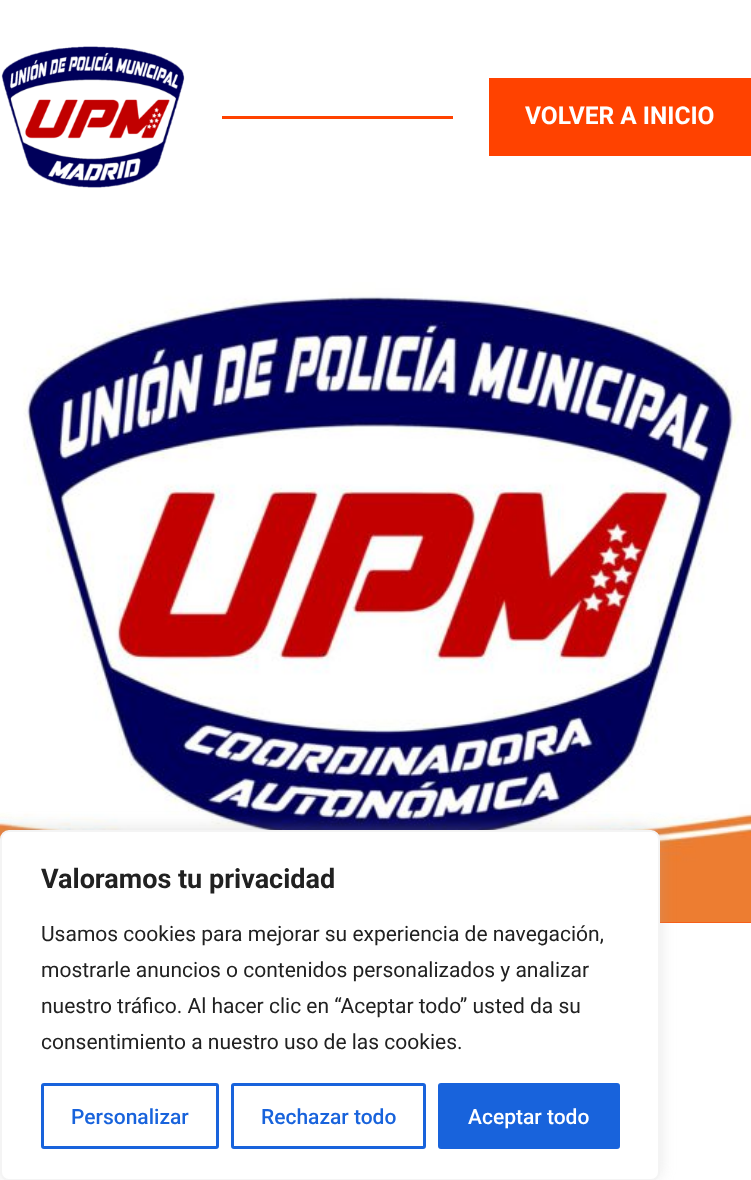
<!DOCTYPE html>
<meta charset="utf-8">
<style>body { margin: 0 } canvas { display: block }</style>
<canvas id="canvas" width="751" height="1180"></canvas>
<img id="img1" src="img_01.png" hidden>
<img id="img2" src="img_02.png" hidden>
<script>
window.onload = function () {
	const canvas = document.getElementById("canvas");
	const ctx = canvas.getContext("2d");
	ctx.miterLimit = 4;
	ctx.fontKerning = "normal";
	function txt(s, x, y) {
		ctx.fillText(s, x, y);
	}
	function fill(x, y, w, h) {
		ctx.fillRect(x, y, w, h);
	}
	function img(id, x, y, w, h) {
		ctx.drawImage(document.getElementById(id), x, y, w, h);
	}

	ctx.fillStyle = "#FFFFFF";
	fill(0, 0, 751, 1180);
	img("img1", 1, 46, 184, 142);
	ctx.fillStyle = "#FF4200";
	fill(222, 116, 231, 3);
	fill(489, 78, 262, 78);
	fill(660, 922, 91, 1);
	img("img2", 0, 227, 751, 696);
	ctx.fillStyle = "rgba(172, 171, 171, 0.3)";
	ctx.filter = "blur(7.5px)";
	ctx.beginPath();
	ctx.roundRect(0, 828, 660, 351, 9);
	ctx.fill();
	ctx.filter = "none";
	ctx.fillStyle = "#FFFFFF";
	ctx.beginPath();
	ctx.roundRect(1, 831, 658, 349, 8);
	ctx.fill();
	ctx.strokeStyle = "#F4F4F4";
	ctx.lineWidth = 2;
	ctx.stroke();
	ctx.beginPath();
	ctx.roundRect(42.5, 1084.5, 175, 63, 1.5);
	ctx.strokeStyle = "#1863DC";
	ctx.lineWidth = 3;
	ctx.stroke();
	ctx.beginPath();
	ctx.roundRect(232.5, 1084.5, 192, 63, 1.5);
	ctx.stroke();
	ctx.fillStyle = "#1863DC";
	ctx.beginPath();
	ctx.roundRect(439.5, 1084.5, 179, 63, 1.5);
	ctx.fill();
	ctx.stroke();
	ctx.font = "bold 24.5px Roboto";
	ctx.fillStyle = "#FFFFFF";
	txt("VOLVER A INICIO", 525, 124);
	ctx.font = "bold 27px Roboto";
	ctx.fillStyle = "#212121";
	txt("Valoramos tu privacidad", 41, 888);
	ctx.font = "21px Roboto";
	txt("Usamos cookies para mejorar su experiencia de navegación,", 41, 941);
	txt("mostrarle anuncios o contenidos personalizados y analizar", 41, 977);
	txt("nuestro tráfico. Al hacer clic en “Aceptar todo” usted da su", 41, 1013);
	txt("consentimiento a nuestro uso de las cookies.", 41, 1049);
	ctx.font = "500 21px Roboto";
	ctx.fillStyle = "#1863DC";
	txt("Personalizar", 71, 1124);
	txt("Rechazar todo", 261, 1124);
	ctx.fillStyle = "#FFFFFF";
	txt("Aceptar todo", 468, 1124);
};
</script>
